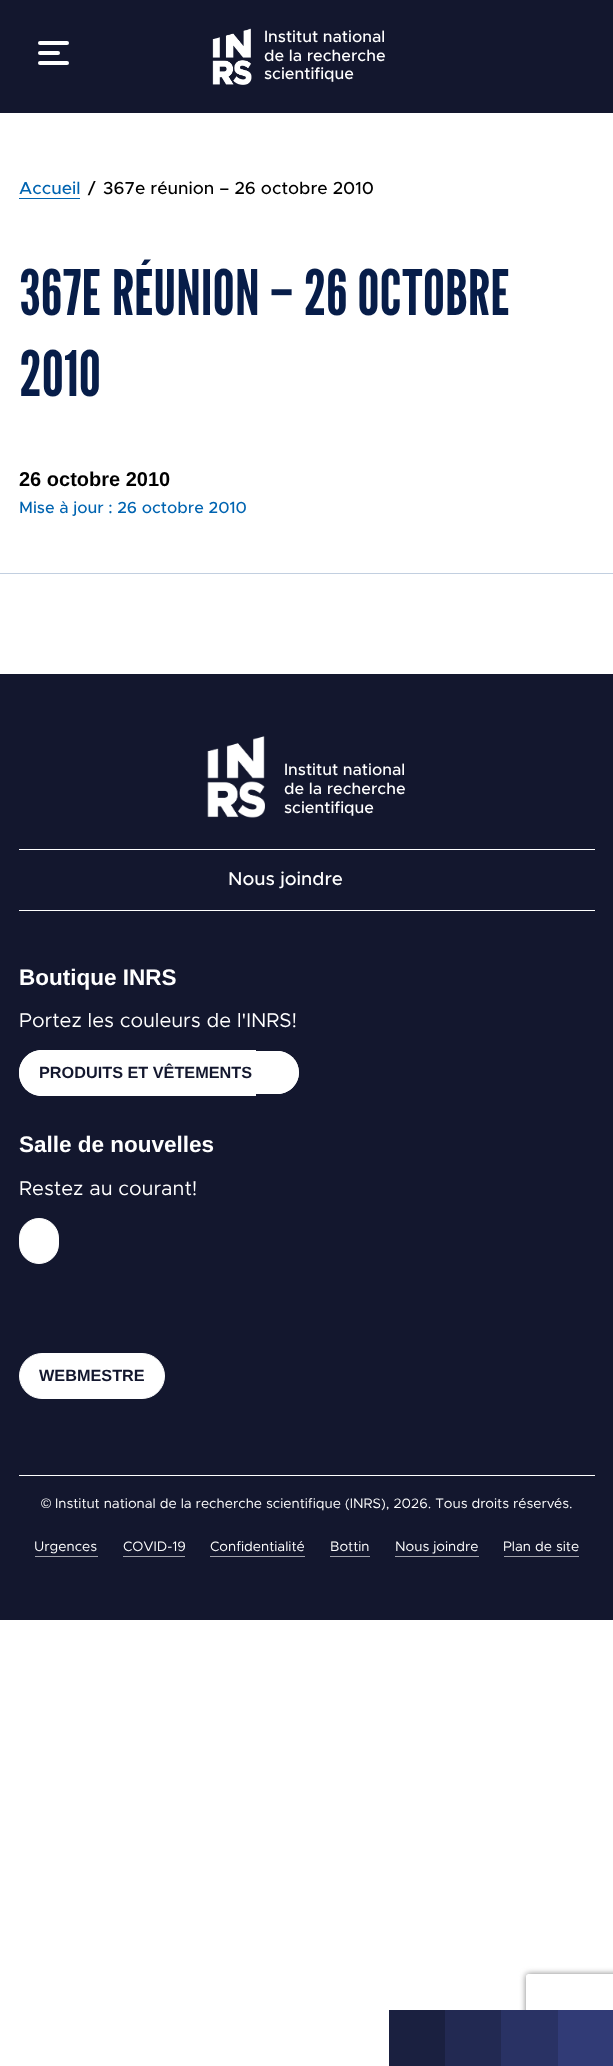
<!DOCTYPE html>
<meta charset="utf-8">
<style>body { margin: 0 } canvas { display: block }</style>
<canvas id="canvas" width="613" height="2066"></canvas>
<img id="img1" src="img_01.png" hidden>
<img id="img2" src="img_02.png" hidden>
<script>
window.onload = function () {
	const canvas = document.getElementById("canvas");
	const ctx = canvas.getContext("2d");
	ctx.miterLimit = 4;
	ctx.fontKerning = "normal";
	function txt(s, x, y) {
		ctx.fillText(s, x, y);
	}
	function fill(x, y, w, h) {
		ctx.fillRect(x, y, w, h);
	}
	function round(x, y, w, h, r) {
		ctx.beginPath();
		ctx.roundRect(x, y, w, h, r);
		ctx.fill();
	}
	function img(id, x, y, w, h) {
		ctx.drawImage(document.getElementById(id), x, y, w, h);
	}

	ctx.fillStyle = "#FFFFFF";
	fill(0, 0, 613, 2066);
	ctx.fillStyle = "#13172E";
	fill(0, 0, 613, 113);
	ctx.fillStyle = "#FFFFFF";
	round(38, 51, 22, 4, 2);
	round(38, 41, 31, 4, 2);
	round(38, 61, 31, 4, 2);
	img("img1", 212, 28, 40, 57);
	ctx.fillStyle = "#C2CFE0";
	fill(0, 573, 613, 1);
	ctx.fillStyle = "#0064B1";
	fill(19, 198, 61, 1);
	ctx.fillStyle = "#13172E";
	fill(0, 674, 613, 946);
	img("img2", 207, 736, 58, 82);
	ctx.fillStyle = "#FFFFFF";
	fill(19, 849, 576, 1);
	fill(19, 910, 576, 1);
	ctx.beginPath();
	ctx.roundRect(19, 1050, 237, 46, [23, 0, 0, 23]);
	ctx.fill();
	ctx.beginPath();
	ctx.moveTo(42, 1050);
	ctx.lineTo(256, 1050);
	ctx.lineTo(256, 1096);
	ctx.lineTo(42, 1096);
	ctx.bezierCurveTo(29, 1096, 19, 1086, 19, 1073);
	ctx.bezierCurveTo(19, 1060, 29, 1050, 42, 1050);
	ctx.closePath();
	ctx.moveTo(42, 1051);
	ctx.lineTo(256, 1051);
	ctx.lineTo(256, 1095);
	ctx.lineTo(42, 1095);
	ctx.bezierCurveTo(30, 1095, 20, 1085, 20, 1073);
	ctx.bezierCurveTo(20, 1061, 30, 1051, 42, 1051);
	ctx.closePath();
	ctx.fill("evenodd");
	ctx.beginPath();
	ctx.roundRect(249, 1051, 50, 43, [0, 21.5, 21.5, 0]);
	ctx.fill();
	ctx.beginPath();
	ctx.moveTo(249, 1051);
	ctx.lineTo(278, 1051);
	ctx.bezierCurveTo(289, 1051, 299, 1061, 299, 1072);
	ctx.bezierCurveTo(299, 1084, 289, 1094, 278, 1094);
	ctx.lineTo(249, 1094);
	ctx.closePath();
	ctx.moveTo(249, 1052);
	ctx.lineTo(278, 1052);
	ctx.bezierCurveTo(289, 1052, 298, 1061, 298, 1072);
	ctx.bezierCurveTo(298, 1084, 289, 1092, 278, 1092);
	ctx.lineTo(249, 1092);
	ctx.closePath();
	ctx.fill("evenodd");
	ctx.beginPath();
	ctx.roundRect(19.5, 1218.5, 39, 45, 19.5);
	ctx.fill();
	ctx.strokeStyle = "#FFFFFF";
	ctx.stroke();
	ctx.beginPath();
	ctx.roundRect(19.5, 1353.5, 145, 45, 22.5);
	ctx.fill();
	ctx.stroke();
	fill(19, 1475, 576, 1);
	ctx.fillStyle = "#A1A2AB";
	fill(35, 1556, 63, 1);
	fill(123, 1556, 62, 1);
	fill(210, 1556, 95, 1);
	fill(330, 1556, 40, 1);
	fill(395, 1556, 84, 1);
	fill(504, 1556, 75, 1);
	ctx.fillStyle = "#1A2040";
	fill(389, 2010, 56, 56);
	ctx.fillStyle = "#222952";
	fill(445, 2010, 56, 56);
	ctx.save();
	ctx.beginPath();
	ctx.moveTo(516, 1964);
	ctx.lineTo(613, 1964);
	ctx.lineTo(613, 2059);
	ctx.lineTo(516, 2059);
	ctx.closePath();
	ctx.moveTo(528.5, 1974);
	ctx.lineTo(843.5, 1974);
	ctx.bezierCurveTo(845, 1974, 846, 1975, 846, 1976.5);
	ctx.lineTo(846, 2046.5);
	ctx.bezierCurveTo(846, 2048, 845, 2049, 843.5, 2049);
	ctx.lineTo(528.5, 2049);
	ctx.bezierCurveTo(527, 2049, 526, 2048, 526, 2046.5);
	ctx.lineTo(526, 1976.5);
	ctx.bezierCurveTo(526, 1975, 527, 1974, 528.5, 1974);
	ctx.closePath();
	ctx.clip("evenodd");
	ctx.fillStyle = "#808080";
	ctx.filter = "blur(3px)";
	ctx.beginPath();
	ctx.roundRect(526, 1974, 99, 75, 2.5);
	ctx.fill();
	ctx.filter = "none";
	ctx.restore();
	ctx.fillStyle = "#293264";
	fill(501, 2010, 57, 56);
	ctx.fillStyle = "#313B76";
	fill(558, 2010, 55, 56);
	ctx.font = "500 16.25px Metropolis";
	ctx.fillStyle = "#FFFFFF";
	txt("Institut national", 264, 42);
	txt("de la recherche", 264, 61);
	txt("scientifique", 264, 79);
	ctx.font = "500 17.5px Metropolis";
	ctx.fillStyle = "#0064B1";
	txt("Accueil", 19, 194);
	ctx.fillStyle = "#000000";
	txt("/", 88, 194);
	txt("367e réunion – 26 octobre 2010", 103, 194);
	ctx.font = "62.5px League Gothic";
	ctx.fillStyle = "#071D49";
	txt("367E RÉUNION – 26 OCTOBRE", 19, 315);
	txt("2010", 19, 396);
	ctx.font = "bold 20px Liberation Sans";
	ctx.fillStyle = "#000000";
	txt("26 octobre 2010", 19, 486);
	ctx.font = "500 16.25px Metropolis";
	ctx.fillStyle = "#0064B1";
	txt("Mise à jour : 26 octobre 2010", 19, 513);
	ctx.fillStyle = "#FFFFFF";
	txt("Institut national", 284, 775);
	txt("de la recherche", 284, 794);
	txt("scientifique", 284, 813);
	ctx.font = "500 18.75px Metropolis";
	txt("Nous joindre", 228, 885);
	ctx.font = "bold 22.5px Liberation Sans";
	txt("Boutique INRS", 19, 985);
	ctx.font = "20px Metropolis";
	txt("Portez les couleurs de l'INRS!", 19, 1027);
	ctx.font = "bold 16.25px Liberation Sans";
	ctx.fillStyle = "#13172E";
	txt("PRODUITS ET VÊTEMENTS", 39, 1078);
	ctx.font = "bold 22.5px Liberation Sans";
	ctx.fillStyle = "#FFFFFF";
	txt("Salle de nouvelles", 19, 1152);
	ctx.font = "20px Metropolis";
	txt("Restez au courant!", 19, 1195);
	ctx.font = "bold 16.25px Liberation Sans";
	ctx.fillStyle = "#13172E";
	txt("WEBMESTRE", 39, 1381);
	ctx.font = "13.75px Liberation Sans";
	ctx.fillStyle = "#FFFFFF";
	txt("©", 41, 1508);
	ctx.font = "13.75px Metropolis";
	txt("Institut national de la recherche scientifique (INRS), 2026. Tous droits réservés.", 55, 1508);
	txt("Urgences", 34, 1551);
	txt("COVID-19", 123, 1551);
	txt("Confidentialité", 210, 1551);
	txt("Bottin", 330, 1551);
	txt("Nous joindre", 395, 1551);
	txt("Plan de site", 503, 1551);
};
</script>
